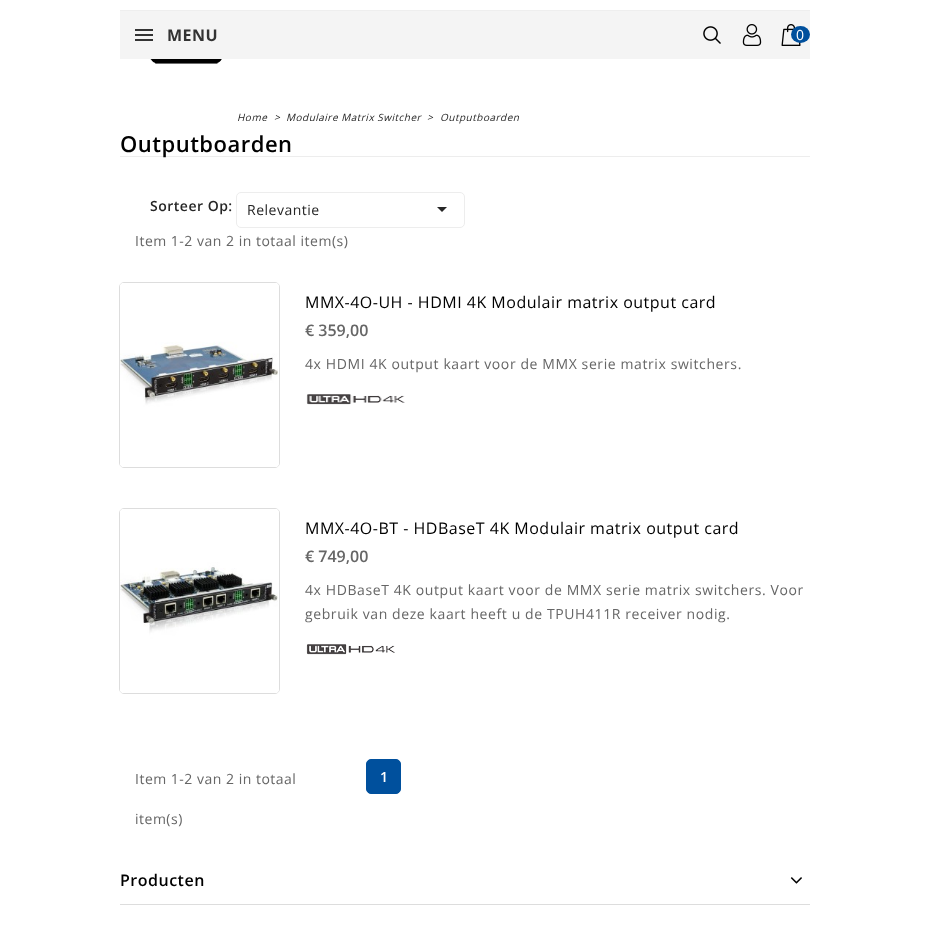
<!DOCTYPE html>
<meta charset="utf-8">
<style>body { margin: 0 } canvas { display: block }</style>
<canvas id="canvas" width="929" height="933"></canvas>
<img id="img1" src="img_01.png" hidden>
<img id="img2" src="img_02.png" hidden>
<img id="img3" src="img_03.png" hidden>
<img id="img4" src="img_04.png" hidden>
<img id="img5" src="img_05.png" hidden>
<img id="img6" src="img_06.png" hidden>
<img id="img7" src="img_07.png" hidden>
<img id="img8" src="img_08.png" hidden>
<img id="img9" src="img_09.png" hidden>
<script>
window.onload = function () {
	const canvas = document.getElementById("canvas");
	const ctx = canvas.getContext("2d");
	ctx.miterLimit = 4;
	ctx.fontKerning = "normal";
	function txt(s, x, y) {
		ctx.fillText(s, x, y);
	}
	function fill(x, y, w, h) {
		ctx.fillRect(x, y, w, h);
	}
	function round(x, y, w, h, r) {
		ctx.beginPath();
		ctx.roundRect(x, y, w, h, r);
		ctx.fill();
	}
	function img(id, x, y, w, h) {
		ctx.drawImage(document.getElementById(id), x, y, w, h);
	}

	ctx.fillStyle = "#FFFFFF";
	fill(0, 0, 929, 933);
	ctx.fillStyle = "#F4F4F4";
	fill(120, 11, 690, 48);
	ctx.fillStyle = "#EEEEEE";
	fill(120, 10, 690, 1);
	ctx.fillStyle = "#333333";
	fill(135, 29, 18, 2);
	fill(135, 34, 18, 2);
	fill(135, 39, 18, 2);
	img("img1", 703, 26, 18, 18);
	img("img2", 742, 24, 20, 22);
	img("img3", 781, 24, 20, 22);
	ctx.fillStyle = "#00509D";
	ctx.beginPath();
	ctx.ellipse(800.5, 34.5, 9.5, 8.5, 0, 0, Math.PI * 2);
	ctx.fill();
	img("img4", 150, 59, 72, 5);
	ctx.fillStyle = "#EDEDED";
	fill(120, 156, 690, 1);
	ctx.beginPath();
	ctx.roundRect(236.5, 192.5, 228, 35, 4.5);
	ctx.strokeStyle = "#EDEDED";
	ctx.stroke();
	ctx.fillStyle = "#262626";
	ctx.beginPath();
	ctx.moveTo(437, 207);
	ctx.lineTo(447, 207);
	ctx.lineTo(442, 212);
	ctx.closePath();
	ctx.fill();
	ctx.beginPath();
	ctx.roundRect(119.5, 282.5, 160, 185, 4.5);
	ctx.strokeStyle = "#DDDDDD";
	ctx.stroke();
	ctx.fillStyle = "#FFFFFF";
	round(120, 283, 159, 184, 4);
	img("img5", 120, 283, 158, 184);
	img("img6", 306, 394, 99, 11);
	ctx.beginPath();
	ctx.roundRect(119.5, 508.5, 160, 185, 4.5);
	ctx.stroke();
	round(120, 509, 159, 184, 4);
	img("img7", 120, 509, 158, 184);
	img("img8", 306, 644, 89, 11);
	ctx.fillStyle = "#00509D";
	ctx.beginPath();
	ctx.roundRect(366.5, 759.5, 34, 34, 4.5);
	ctx.fill();
	ctx.strokeStyle = "#00509D";
	ctx.stroke();
	ctx.fillStyle = "#DDDDDD";
	fill(120, 904, 690, 1);
	img("img9", 790, 877, 12, 7);
	ctx.letterSpacing = "0.5px";
	ctx.font = "bold 16px Open Sans";
	ctx.fillStyle = "#333333";
	txt("MENU", 167, 41);
	ctx.font = "14px Open Sans";
	ctx.fillStyle = "#FFFFFF";
	txt("0", 796, 40);
	ctx.font = "italic 10px Open Sans";
	ctx.fillStyle = "#262626";
	txt("Home", 237, 121);
	txt(">", 274, 121);
	txt("Modulaire Matrix Switcher", 286, 121);
	txt(">", 427, 121);
	txt("Outputboarden", 440, 121);
	ctx.font = "600 22px Open Sans";
	ctx.fillStyle = "#000000";
	txt("Outputboarden", 120, 152);
	ctx.font = "600 14px Open Sans";
	ctx.fillStyle = "#262626";
	txt("Sorteer Op:", 150, 211);
	ctx.font = "14px Open Sans";
	txt("Relevantie", 247, 215);
	ctx.fillStyle = "#666666";
	txt("Item 1-2 van 2 in totaal item(s)", 135, 246);
	ctx.font = "16px Open Sans";
	ctx.fillStyle = "#000000";
	txt("MMX-4O-UH - HDMI 4K Modulair matrix output card", 305, 308);
	ctx.letterSpacing = "0px";
	ctx.font = "600 16px Open Sans";
	ctx.fillStyle = "#666666";
	txt("€ 359,00", 305, 336);
	ctx.letterSpacing = "0.6px";
	ctx.font = "14px Open Sans";
	txt("4x HDMI 4K output kaart voor de MMX serie matrix switchers.", 305, 369);
	ctx.letterSpacing = "0.5px";
	ctx.font = "16px Open Sans";
	ctx.fillStyle = "#000000";
	txt("MMX-4O-BT - HDBaseT 4K Modulair matrix output card", 305, 534);
	ctx.letterSpacing = "0px";
	ctx.font = "600 16px Open Sans";
	ctx.fillStyle = "#666666";
	txt("€ 749,00", 305, 562);
	ctx.letterSpacing = "0.6px";
	ctx.font = "14px Open Sans";
	txt("4x HDBaseT 4K output kaart voor de MMX serie matrix switchers. Voor", 305, 595);
	txt("gebruik van deze kaart heeft u de TPUH411R receiver nodig.", 305, 619);
	ctx.letterSpacing = "0.5px";
	txt("Item 1-2 van 2 in totaal", 135, 784);
	txt("item(s)", 135, 824);
	ctx.font = "600 14px Open Sans";
	ctx.fillStyle = "#FFFFFF";
	txt("1", 380, 782);
	ctx.font = "600 16px Open Sans";
	ctx.fillStyle = "#000000";
	txt("Producten", 120, 886);
};
</script>
